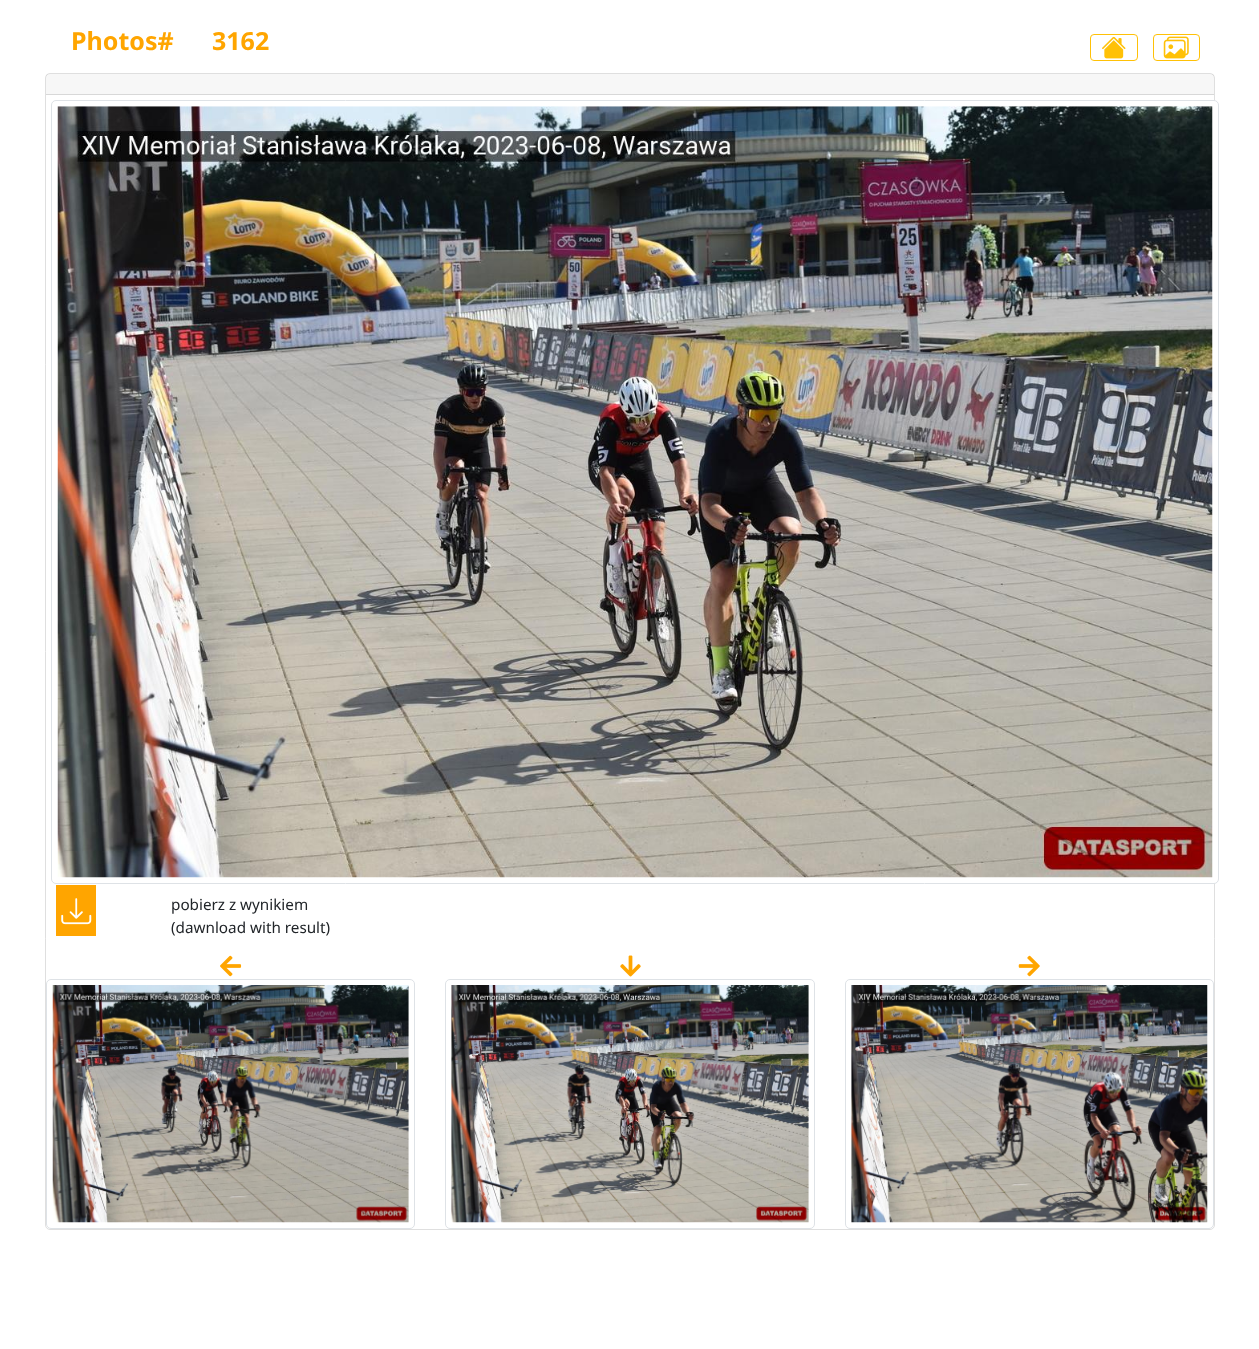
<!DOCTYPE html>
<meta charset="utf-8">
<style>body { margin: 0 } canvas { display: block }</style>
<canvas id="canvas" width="1259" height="1349"></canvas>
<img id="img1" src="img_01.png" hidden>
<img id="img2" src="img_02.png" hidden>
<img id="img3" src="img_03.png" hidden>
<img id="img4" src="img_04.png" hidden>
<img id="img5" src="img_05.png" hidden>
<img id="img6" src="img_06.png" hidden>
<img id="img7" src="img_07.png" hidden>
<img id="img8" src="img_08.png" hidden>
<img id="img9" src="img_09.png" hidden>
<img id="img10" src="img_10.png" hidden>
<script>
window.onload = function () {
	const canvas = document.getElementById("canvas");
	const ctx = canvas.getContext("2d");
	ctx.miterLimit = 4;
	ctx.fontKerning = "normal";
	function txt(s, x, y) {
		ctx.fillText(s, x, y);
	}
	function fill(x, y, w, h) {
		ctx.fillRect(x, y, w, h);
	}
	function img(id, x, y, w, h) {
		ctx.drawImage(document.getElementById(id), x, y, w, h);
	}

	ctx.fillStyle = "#FFFFFF";
	fill(0, 0, 1259, 1349);
	ctx.beginPath();
	ctx.roundRect(1090.5, 34.5, 47, 26, 3.5);
	ctx.strokeStyle = "#FFC107";
	ctx.stroke();
	img("img1", 1102, 36, 24, 23);
	ctx.beginPath();
	ctx.roundRect(1153.5, 34.5, 46, 26, 3.5);
	ctx.stroke();
	img("img2", 1163, 36, 26, 23);
	ctx.beginPath();
	ctx.roundRect(45.5, 73.5, 1169, 1156, 4.5);
	ctx.strokeStyle = "#DFDFDF";
	ctx.stroke();
	ctx.fillStyle = "rgba(0, 0, 0, 0.03)";
	fill(46, 74, 1168, 20);
	ctx.fillStyle = "#D8D8D8";
	fill(46, 94, 1168, 1);
	ctx.fillStyle = "#FFFFFF";
	ctx.beginPath();
	ctx.roundRect(51.5, 100.5, 1167, 783, 4.5);
	ctx.fill();
	ctx.strokeStyle = "#DEE2E6";
	ctx.stroke();
	img("img3", 57, 106, 1156, 772);
	ctx.fillStyle = "#FFA500";
	fill(56, 885, 40, 51);
	img("img4", 61, 898, 31, 27);
	img("img5", 220, 955, 22, 22);
	ctx.fillStyle = "#FFFFFF";
	ctx.beginPath();
	ctx.roundRect(46.5, 979.5, 368, 249, 4.5);
	ctx.fill();
	ctx.stroke();
	img("img6", 52, 985, 357, 238);
	img("img7", 620, 955, 21, 22);
	ctx.beginPath();
	ctx.roundRect(445.5, 979.5, 369, 249, 4.5);
	ctx.stroke();
	img("img8", 451, 985, 358, 238);
	img("img9", 1018, 955, 22, 22);
	ctx.beginPath();
	ctx.roundRect(845.5, 979.5, 368, 249, 4.5);
	ctx.fill();
	ctx.stroke();
	img("img10", 851, 985, 357, 238);
	ctx.font = "bold 25px Noto Sans";
	ctx.fillStyle = "#FFA500";
	txt("Photos#", 71, 50);
	txt("3162", 212, 50);
	ctx.font = "15.25px Noto Sans";
	ctx.fillStyle = "#212529";
	txt("pobierz z wynikiem", 171, 910);
	txt("(dawnload with result)", 171, 933);
};
</script>
